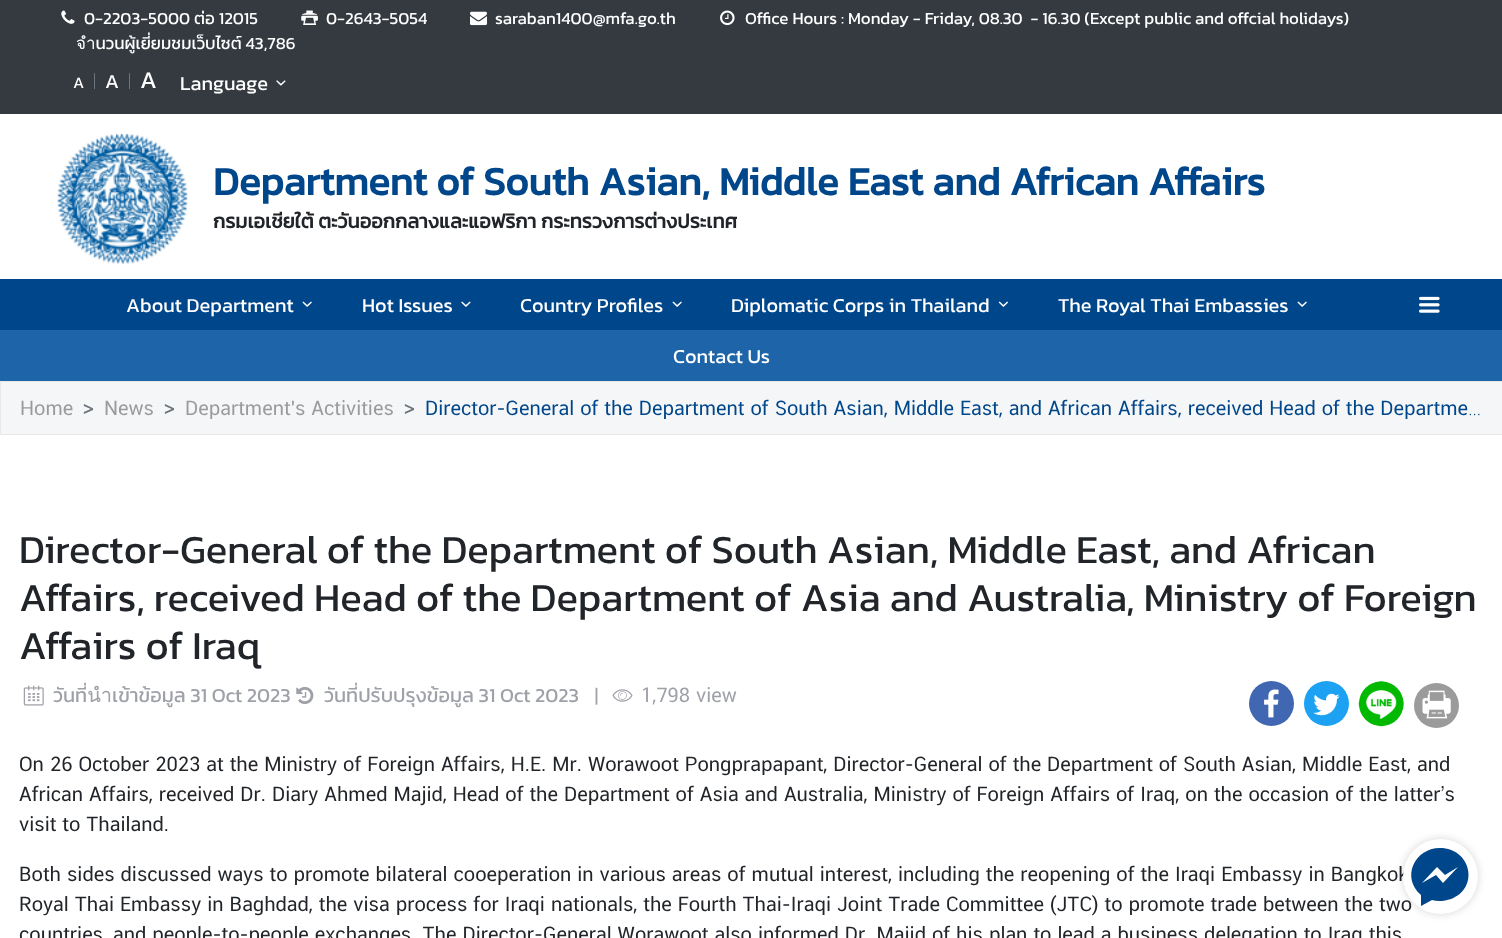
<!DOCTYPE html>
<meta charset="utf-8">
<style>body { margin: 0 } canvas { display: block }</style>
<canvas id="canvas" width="1502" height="938"></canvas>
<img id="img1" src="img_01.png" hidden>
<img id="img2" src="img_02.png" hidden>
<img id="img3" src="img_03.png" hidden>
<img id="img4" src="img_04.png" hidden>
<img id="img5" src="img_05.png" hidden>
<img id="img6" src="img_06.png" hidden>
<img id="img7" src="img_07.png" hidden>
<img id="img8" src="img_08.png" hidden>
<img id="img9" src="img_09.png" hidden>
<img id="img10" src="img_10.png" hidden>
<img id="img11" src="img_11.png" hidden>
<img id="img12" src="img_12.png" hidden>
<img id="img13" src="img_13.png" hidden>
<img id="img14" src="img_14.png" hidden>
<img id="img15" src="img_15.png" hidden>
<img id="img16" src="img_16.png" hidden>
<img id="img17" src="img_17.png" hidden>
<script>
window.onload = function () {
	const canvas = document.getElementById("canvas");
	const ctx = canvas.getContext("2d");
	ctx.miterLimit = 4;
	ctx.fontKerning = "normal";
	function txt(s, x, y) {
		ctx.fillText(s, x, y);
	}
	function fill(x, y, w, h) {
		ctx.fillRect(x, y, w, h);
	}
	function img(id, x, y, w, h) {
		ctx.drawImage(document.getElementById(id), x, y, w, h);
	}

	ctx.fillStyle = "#FFFFFF";
	fill(0, 0, 1502, 938);
	ctx.fillStyle = "#343A40";
	fill(0, 0, 1502, 114);
	img("img1", 61, 10, 14, 14);
	img("img2", 301, 10, 17, 15);
	img("img3", 470, 11, 17, 15);
	img("img4", 720, 10, 15, 16);
	ctx.fillStyle = "#6C757D";
	fill(94, 73, 1, 16);
	ctx.fillStyle = "#616971";
	fill(94, 73, 1, 1);
	ctx.fillStyle = "#6C757D";
	fill(129, 73, 1, 16);
	ctx.fillStyle = "#616971";
	fill(129, 73, 1, 1);
	img("img5", 276, 80, 10, 6);
	img("img6", 57, 133, 131, 131);
	ctx.fillStyle = "#00468A";
	fill(0, 279, 1502, 51);
	ctx.fillStyle = "#1E64A8";
	fill(0, 330, 1502, 51);
	img("img7", 302, 301, 10, 6);
	img("img8", 461, 301, 10, 6);
	img("img7", 672, 301, 10, 6);
	img("img9", 998, 301, 10, 6);
	img("img7", 1297, 301, 10, 6);
	img("img10", 1419, 296, 21, 17);
	ctx.fillStyle = "#F5F6F7";
	ctx.beginPath();
	ctx.rect(0.5, 381.5, 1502, 53);
	ctx.fill();
	ctx.strokeStyle = "#E8E8E9";
	ctx.stroke();
	img("img11", 23, 685, 21, 21);
	img("img12", 296, 686, 18, 18);
	img("img13", 612, 689, 21, 13);
	ctx.fillStyle = "#4267B2";
	ctx.beginPath();
	ctx.arc(1271.5, 703.5, 22.5, 0, Math.PI * 2);
	ctx.fill();
	img("img14", 1264, 689, 15, 29);
	ctx.fillStyle = "#1DA1F2";
	ctx.beginPath();
	ctx.arc(1326.5, 703.5, 22.5, 0, Math.PI * 2);
	ctx.fill();
	img("img15", 1313, 693, 27, 23);
	ctx.fillStyle = "#EFEFEF";
	ctx.beginPath();
	ctx.arc(1381.5, 703.5, 22.5, 0, Math.PI * 2);
	ctx.fill();
	img("img16", 1358, 681, 46, 46);
	ctx.fillStyle = "#9B9B9B";
	ctx.beginPath();
	ctx.arc(1436.5, 705.5, 22.5, 0, Math.PI * 2);
	ctx.fill();
	img("img17", 1422, 690, 29, 29);
	ctx.fillStyle = "rgba(0, 0, 0, 0.16)";
	ctx.filter = "blur(4px)";
	ctx.beginPath();
	ctx.roundRect(1403, 839, 75, 75, 37.5);
	ctx.fill();
	ctx.filter = "none";
	ctx.font = "17px Kanit";
	ctx.fillStyle = "#FFFFFF";
	txt("0-2203-5000 ต่อ 12015", 84, 24);
	txt("0-2643-5054", 326, 24);
	txt("saraban1400@mfa.go.th", 495, 24);
	txt("Office Hours : Monday - Friday, 08.30  - 16.30 (Except public and offcial holidays)", 745, 24);
	txt("จำนวนผู้เยี่ยมชมเว็บไซต์ 43,786", 76, 49);
	ctx.font = "16px Kanit";
	txt("A", 73, 88);
	ctx.font = "20px Kanit";
	txt("A", 105, 88);
	ctx.font = "24px Kanit";
	txt("A", 140, 88);
	ctx.font = "20px Kanit";
	txt("Language", 180, 90);
	ctx.font = "bold 40px Kanit";
	ctx.fillStyle = "#00468A";
	txt("Department of South Asian, Middle East and African Affairs", 213, 195);
	ctx.font = "bold 20px Kanit";
	ctx.fillStyle = "#212529";
	txt("กรมเอเชียใต้ ตะวันออกกลางและแอฟริกา กระทรวงการต่างประเทศ", 213, 228);
	ctx.font = "20px Kanit";
	ctx.fillStyle = "#FFFFFF";
	txt("About Department", 126, 312);
	txt("Hot Issues", 362, 312);
	txt("Country Profiles", 520, 312);
	txt("Diplomatic Corps in Thailand", 731, 312);
	txt("The Royal Thai Embassies", 1058, 312);
	txt("Contact Us", 673, 363);
	ctx.font = "20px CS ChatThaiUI";
	ctx.fillStyle = "#9B9B9B";
	txt("Home", 20, 415);
	ctx.font = "20px Kanit";
	ctx.fillStyle = "#6C757D";
	txt(">", 83, 415);
	ctx.font = "20px CS ChatThaiUI";
	ctx.fillStyle = "#9B9B9B";
	txt("News", 104, 415);
	ctx.font = "20px Kanit";
	ctx.fillStyle = "#6C757D";
	txt(">", 164, 415);
	ctx.font = "20px CS ChatThaiUI";
	ctx.fillStyle = "#9B9B9B";
	txt("Department's Activities", 185, 415);
	ctx.font = "20px Kanit";
	ctx.fillStyle = "#6C757D";
	txt(">", 404, 415);
	ctx.font = "20px CS ChatThaiUI";
	ctx.fillStyle = "#00468A";
	txt("Director-General of the Department of South Asian, Middle East, and African Affairs, received Head of the Departme…", 425, 415);
	ctx.font = "40px Kanit";
	ctx.fillStyle = "#212529";
	txt("Director-General of the Department of South Asian, Middle East, and African", 19, 563);
	txt("Affairs, received Head of the Department of Asia and Australia, Ministry of Foreign", 19, 611);
	txt("Affairs of Iraq", 19, 659);
	ctx.font = "20px Kanit";
	ctx.fillStyle = "#9FA1A9";
	txt("วันที่นำเข้าข้อมูล 31 Oct 2023", 53, 702);
	txt("วันที่ปรับปรุงข้อมูล 31 Oct 2023", 324, 702);
	ctx.font = "20px CS ChatThaiUI";
	txt("|", 594, 702);
	txt("1,798 view", 641, 702);
	ctx.fillStyle = "#212529";
	txt("On 26 October 2023 at the Ministry of Foreign Affairs, H.E. Mr. Worawoot Pongprapapant, Director-General of the Department of South Asian, Middle East, and", 19, 771);
	txt("African Affairs, received Dr. Diary Ahmed Majid, Head of the Department of Asia and Australia, Ministry of Foreign Affairs of Iraq, on the occasion of the latter’s", 19, 801);
	txt("visit to Thailand.", 19, 831);
	txt("Both sides discussed ways to promote bilateral cooeperation in various areas of mutual interest, including the reopening of the Iraqi Embassy in Bangkok", 19, 881);
	txt("Royal Thai Embassy in Baghdad, the visa process for Iraqi nationals, the Fourth Thai-Iraqi Joint Trade Committee (JTC) to promote trade between the two", 19, 911);
	txt("countries, and people-to-people exchanges. The Director-General Worawoot also informed Dr. Majid of his plan to lead a business delegation to Iraq this", 19, 941);
	ctx.fillStyle = "#FFFFFF";
	ctx.beginPath();
	ctx.arc(1440.5, 876.5, 37.5, 0, Math.PI * 2);
	ctx.fill();
	ctx.fillStyle = "#00468A";
	ctx.beginPath();
	ctx.moveTo(1440, 848);
	ctx.bezierCurveTo(1414, 848, 1401, 878, 1421, 895);
	ctx.lineTo(1421, 906);
	ctx.lineTo(1432, 900);
	ctx.bezierCurveTo(1438, 902, 1445, 901, 1451, 899);
	ctx.bezierCurveTo(1480, 888, 1471, 848, 1440, 848);
	ctx.closePath();
	ctx.moveTo(1443, 883);
	ctx.lineTo(1436, 875);
	ctx.lineTo(1422, 883);
	ctx.lineTo(1437, 867);
	ctx.lineTo(1445, 875);
	ctx.lineTo(1458, 867);
	ctx.closePath();
	ctx.fill();
};
</script>
